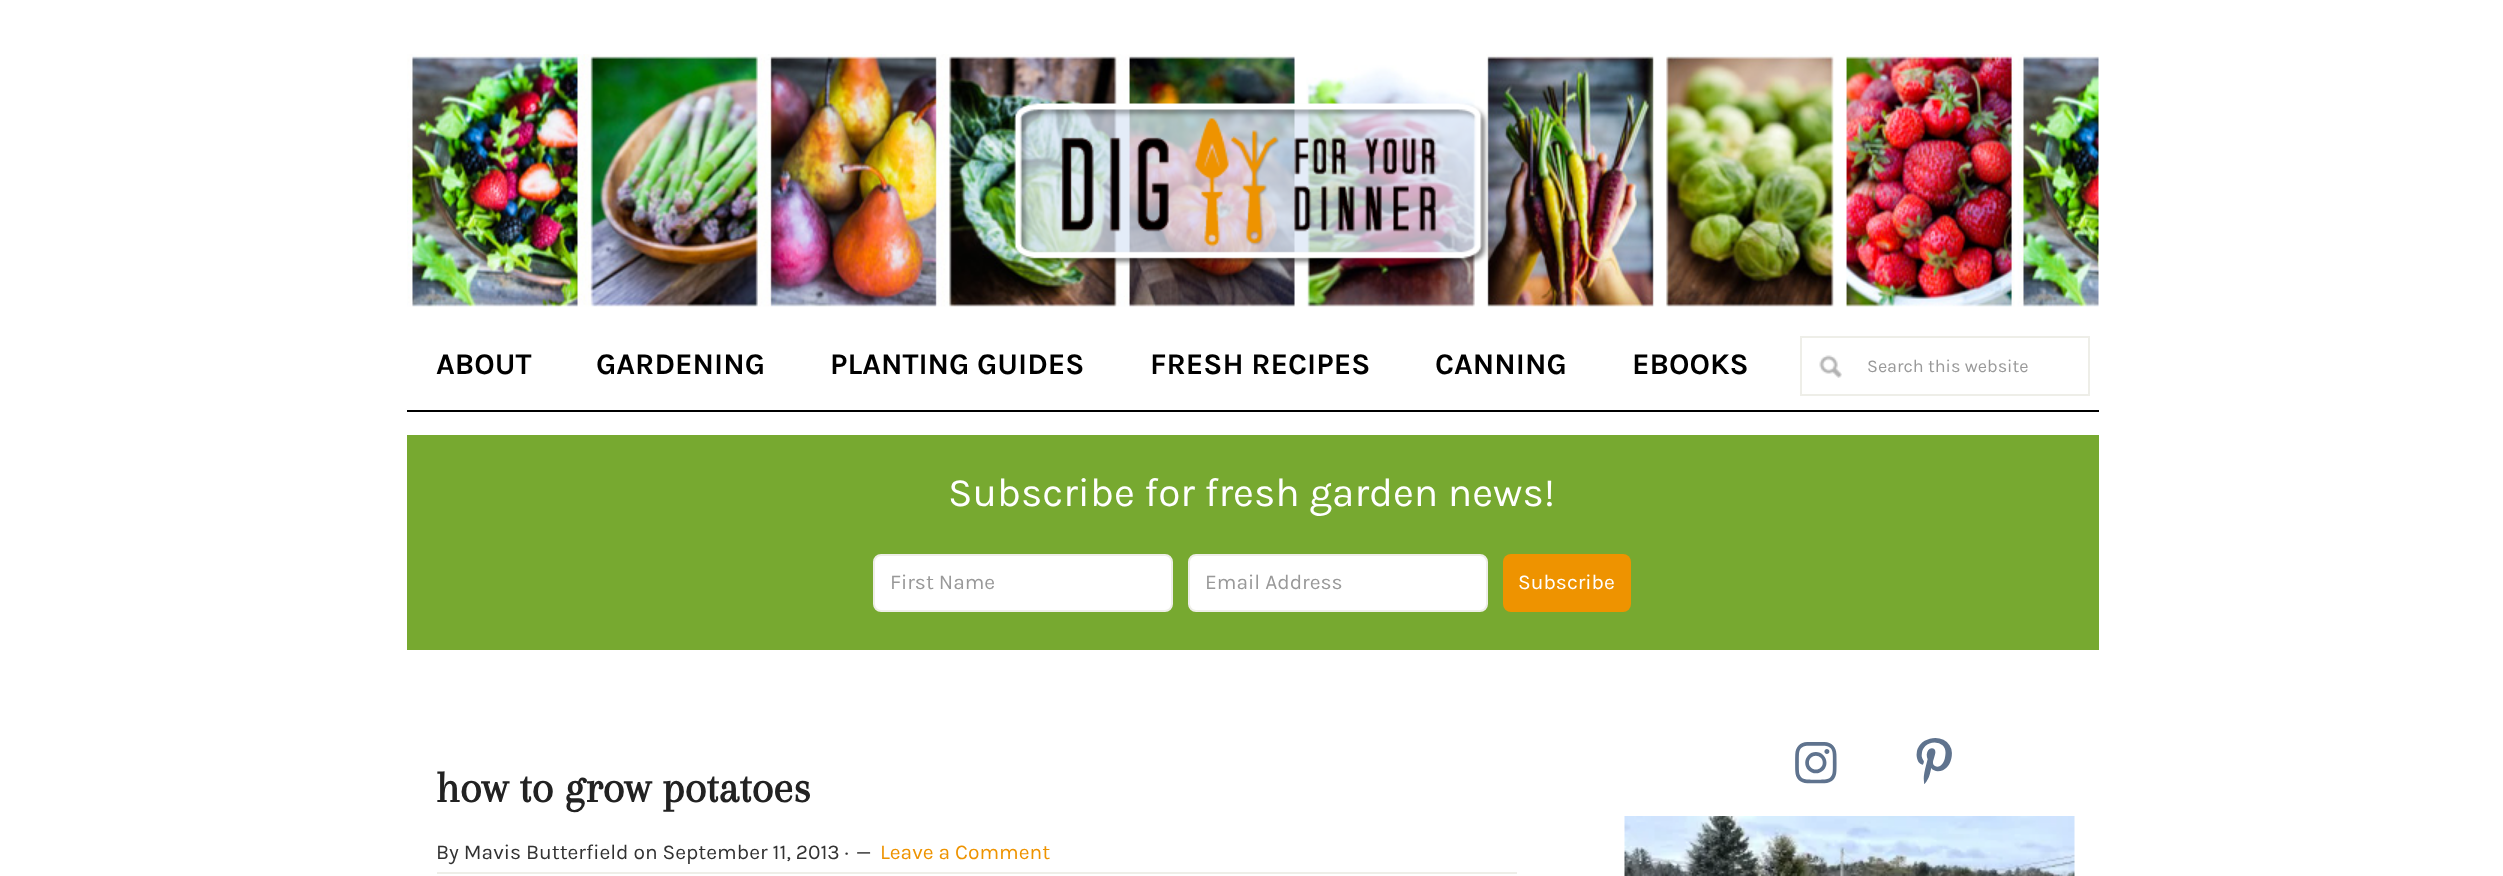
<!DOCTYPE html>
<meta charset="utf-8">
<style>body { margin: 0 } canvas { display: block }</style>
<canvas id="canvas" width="2503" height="876"></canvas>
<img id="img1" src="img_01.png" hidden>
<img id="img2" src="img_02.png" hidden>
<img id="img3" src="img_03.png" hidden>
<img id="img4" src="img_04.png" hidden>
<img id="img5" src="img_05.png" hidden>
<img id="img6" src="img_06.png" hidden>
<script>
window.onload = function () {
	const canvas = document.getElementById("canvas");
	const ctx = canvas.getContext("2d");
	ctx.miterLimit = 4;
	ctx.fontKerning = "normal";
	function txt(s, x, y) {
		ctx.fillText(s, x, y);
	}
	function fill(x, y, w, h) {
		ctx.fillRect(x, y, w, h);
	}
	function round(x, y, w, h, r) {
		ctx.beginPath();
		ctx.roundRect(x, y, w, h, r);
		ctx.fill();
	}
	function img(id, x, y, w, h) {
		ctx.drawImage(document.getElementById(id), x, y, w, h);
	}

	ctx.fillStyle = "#FFFFFF";
	fill(0, 0, 2503, 876);
	img("img1", 407, 54, 1692, 253);
	img("img2", 1013, 103, 476, 163);
	ctx.fillStyle = "#000000";
	fill(407, 410, 1692, 2);
	img("img3", 1819, 355, 23, 23);
	ctx.strokeStyle = "#EEEEE8";
	ctx.lineWidth = 2;
	ctx.strokeRect(1801, 337, 288, 58);
	ctx.fillStyle = "#77A930";
	fill(407, 435, 1692, 215);
	ctx.fillStyle = "#FFFFFF";
	ctx.beginPath();
	ctx.roundRect(874, 555, 298, 56, 7);
	ctx.fill();
	ctx.stroke();
	ctx.beginPath();
	ctx.roundRect(1189, 555, 298, 56, 7);
	ctx.fill();
	ctx.stroke();
	ctx.fillStyle = "#EE9300";
	round(1503, 554, 128, 58, 8);
	ctx.fillStyle = "#EEEEE8";
	fill(437, 872, 1080, 2);
	img("img4", 1795, 742, 42, 42);
	img("img5", 1916, 738, 36, 46);
	img("img6", 1624, 816, 451, 60);
	ctx.font = "bold 30px Karla";
	ctx.fillStyle = "#000000";
	txt("ABOUT", 436, 374);
	txt("GARDENING", 596, 374);
	txt("PLANTING GUIDES", 830, 374);
	txt("FRESH RECIPES", 1150, 374);
	txt("CANNING", 1435, 374);
	txt("EBOOKS", 1632, 374);
	ctx.font = "18px Karla";
	ctx.fillStyle = "#999999";
	txt("Search this website", 1867, 372);
	ctx.font = "40.5px Karla";
	ctx.fillStyle = "#FFFFFF";
	txt("Subscribe for fresh garden news!", 948, 506);
	ctx.font = "21px Karla";
	ctx.fillStyle = "#999999";
	txt("First Name", 890, 589);
	txt("Email Address", 1205, 589);
	ctx.fillStyle = "#FFFFFF";
	txt("Subscribe", 1518, 589);
	ctx.font = "bold 45px Arapey";
	ctx.fillStyle = "#222222";
	txt("how to grow potatoes", 436, 802);
	ctx.font = "21px Karla";
	ctx.fillStyle = "#323232";
	txt("By Mavis Butterfield on September 11, 2013 ·", 436, 859);
	txt("—", 856, 859);
	ctx.fillStyle = "#EE9300";
	txt("Leave a Comment", 880, 859);
};
</script>
